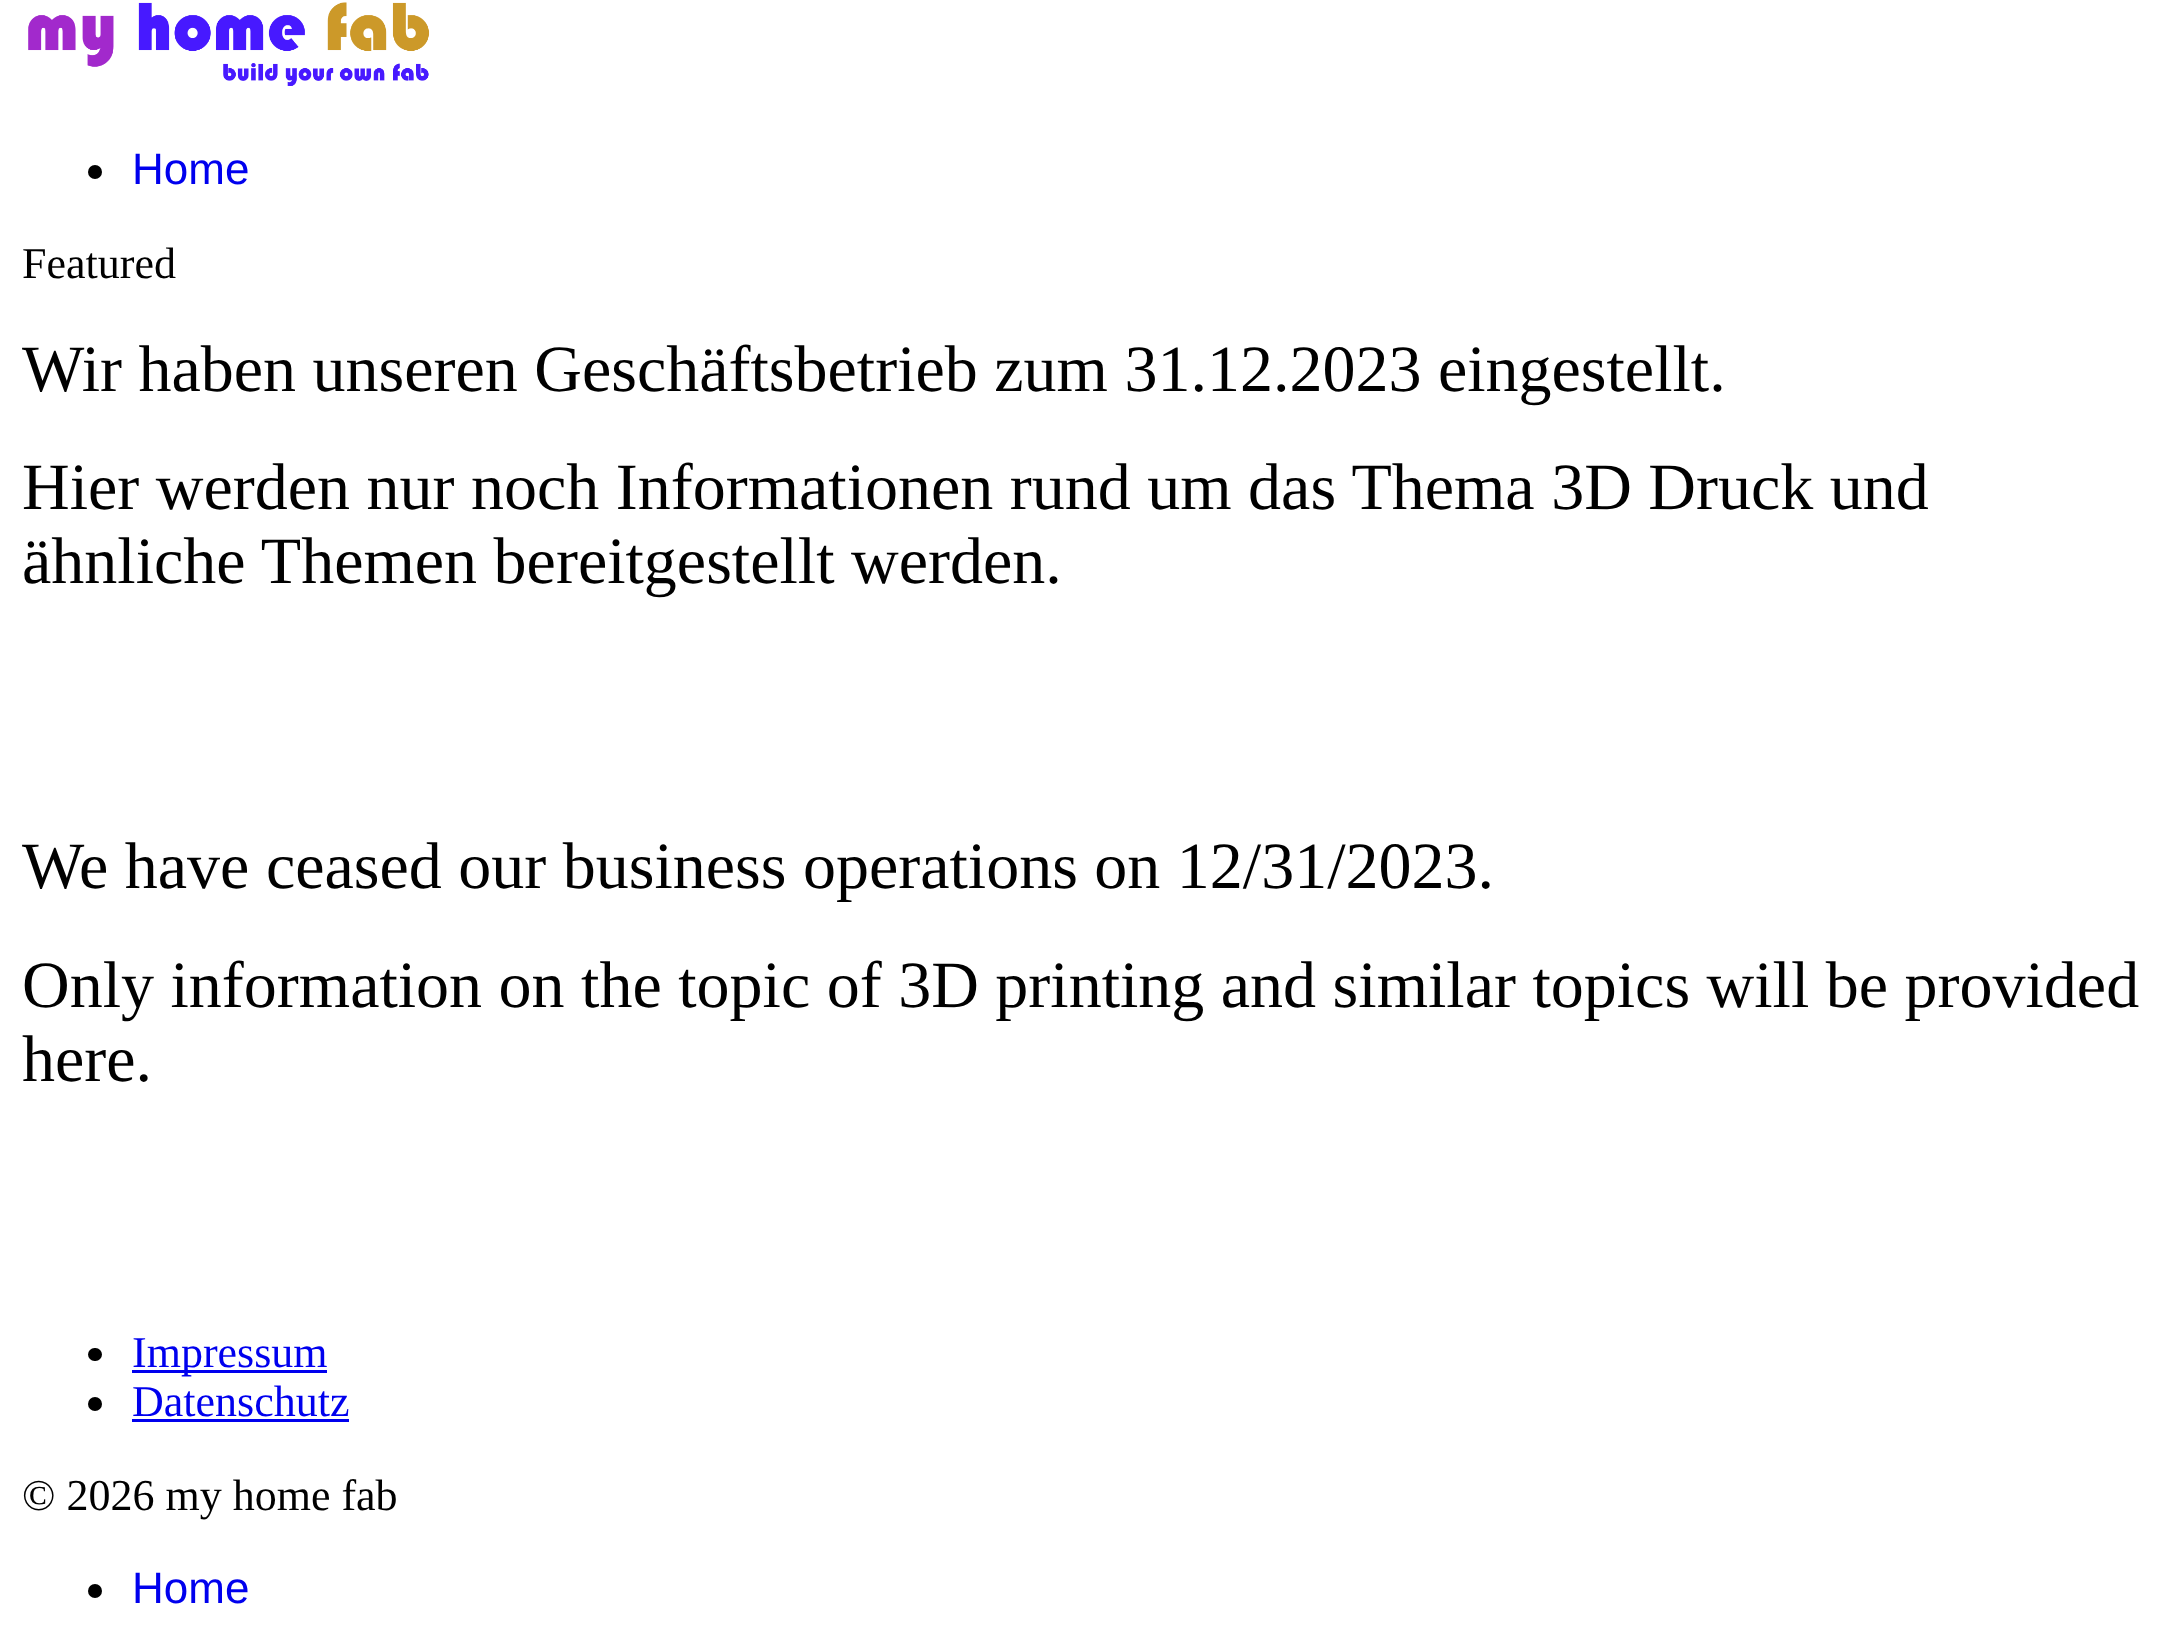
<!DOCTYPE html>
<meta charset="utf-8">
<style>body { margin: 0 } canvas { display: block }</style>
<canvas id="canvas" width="2180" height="1641"></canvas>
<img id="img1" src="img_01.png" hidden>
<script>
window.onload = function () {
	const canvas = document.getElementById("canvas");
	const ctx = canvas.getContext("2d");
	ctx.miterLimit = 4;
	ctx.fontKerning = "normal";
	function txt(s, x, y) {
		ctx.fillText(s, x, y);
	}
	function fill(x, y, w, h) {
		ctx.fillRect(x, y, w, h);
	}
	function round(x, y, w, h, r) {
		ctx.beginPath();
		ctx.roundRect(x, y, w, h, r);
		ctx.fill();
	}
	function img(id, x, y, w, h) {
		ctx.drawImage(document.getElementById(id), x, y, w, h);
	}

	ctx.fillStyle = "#FFFFFF";
	fill(0, 0, 2180, 1641);
	img("img1", 28, 2, 402, 84);
	ctx.fillStyle = "#000000";
	ctx.beginPath();
	ctx.arc(95, 172, 7, 0, Math.PI * 2);
	ctx.fill();
	round(88, 1348, 14, 13, 6.5);
	ctx.fillStyle = "#0000EE";
	fill(132, 1370, 195, 3);
	ctx.fillStyle = "#000000";
	ctx.beginPath();
	ctx.arc(95, 1404, 7, 0, Math.PI * 2);
	ctx.fill();
	ctx.fillStyle = "#0000EE";
	fill(132, 1419, 217, 3);
	ctx.fillStyle = "#000000";
	ctx.beginPath();
	ctx.arc(95, 1591, 7, 0, Math.PI * 2);
	ctx.fill();
	ctx.font = "44px Liberation Sans";
	ctx.fillStyle = "#0000EE";
	txt("Home", 132, 184);
	ctx.font = "44px Liberation Serif";
	ctx.fillStyle = "#000000";
	txt("Featured", 22, 278);
	ctx.font = "66px Liberation Serif";
	txt("Wir haben unseren Geschäftsbetrieb zum 31.12.2023 eingestellt.", 22, 391);
	txt("Hier werden nur noch Informationen rund um das Thema 3D Druck und", 22, 509);
	txt("ähnliche Themen bereitgestellt werden.", 22, 583);
	txt("We have ceased our business operations on 12/31/2023.", 22, 888);
	txt("Only information on the topic of 3D printing and similar topics will be provided", 22, 1007);
	txt("here.", 22, 1081);
	ctx.font = "44px Liberation Serif";
	ctx.fillStyle = "#0000EE";
	txt("Impressum", 132, 1367);
	txt("Datenschutz", 132, 1416);
	ctx.fillStyle = "#000000";
	txt("© 2026 my home fab", 22, 1510);
	ctx.font = "44px Liberation Sans";
	ctx.fillStyle = "#0000EE";
	txt("Home", 132, 1603);
};
</script>
